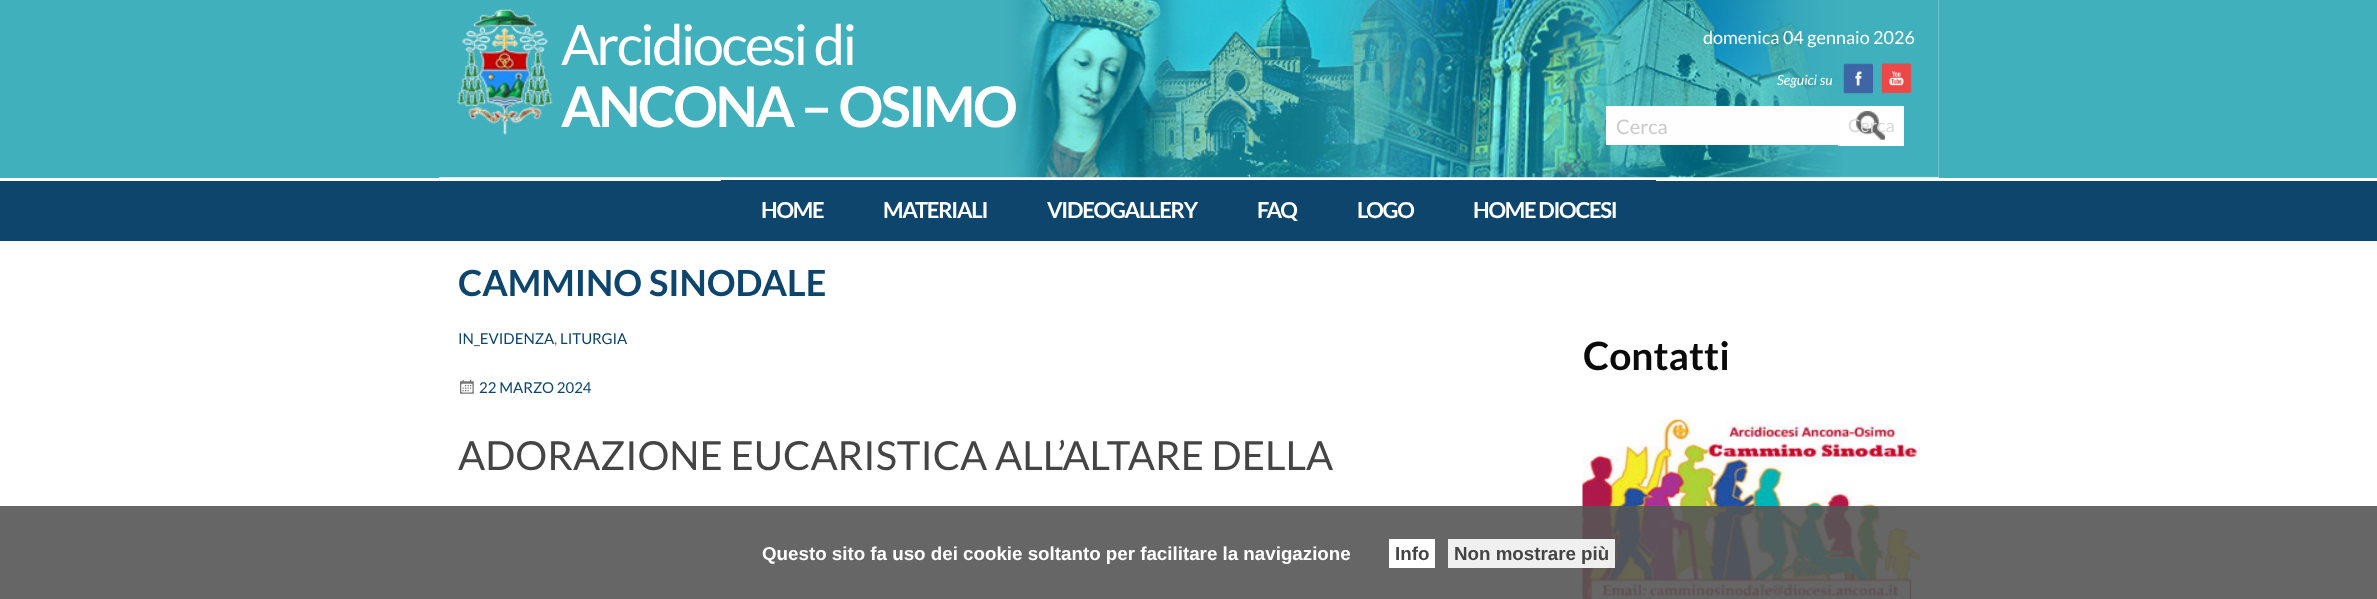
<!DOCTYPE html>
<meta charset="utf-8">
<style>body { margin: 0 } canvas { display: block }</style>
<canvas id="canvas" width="2377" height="599"></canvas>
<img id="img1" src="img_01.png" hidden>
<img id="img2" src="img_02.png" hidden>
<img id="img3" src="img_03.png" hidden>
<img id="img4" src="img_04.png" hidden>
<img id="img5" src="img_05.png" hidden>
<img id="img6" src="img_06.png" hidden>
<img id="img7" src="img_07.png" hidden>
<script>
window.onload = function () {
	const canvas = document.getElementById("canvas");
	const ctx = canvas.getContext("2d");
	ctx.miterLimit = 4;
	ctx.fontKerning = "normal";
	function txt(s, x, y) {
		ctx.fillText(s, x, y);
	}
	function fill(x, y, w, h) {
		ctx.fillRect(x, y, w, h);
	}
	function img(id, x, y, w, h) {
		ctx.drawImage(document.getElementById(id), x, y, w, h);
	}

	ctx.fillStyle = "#FFFFFF";
	fill(0, 0, 2377, 599);
	ctx.fillStyle = "#3FB0BC";
	fill(0, 0, 2377, 178);
	ctx.fillStyle = "#FFFFFF";
	fill(439, 0, 1500, 178);
	img("img1", 439, 0, 1500, 178);
	img("img2", 457, 9, 96, 126);
	img("img3", 1843, 63, 30, 31);
	img("img4", 1881, 63, 31, 31);
	ctx.fillStyle = "#FEFEFE";
	fill(1606, 106, 232, 39);
	ctx.fillStyle = "#FFFFFF";
	fill(1838, 106, 66, 40);
	img("img5", 1856, 111, 29, 29);
	ctx.fillStyle = "#0D456D";
	fill(0, 181, 2377, 60);
	fill(721, 180, 935, 1);
	img("img6", 460, 380, 14, 14);
	img("img7", 1582, 419, 338, 180);
	ctx.fillStyle = "rgba(85, 85, 85, 0.9)";
	fill(0, 506, 2377, 93);
	ctx.fillStyle = "#FFFFFF";
	fill(1389, 539, 46, 29);
	ctx.fillStyle = "rgba(255, 255, 255, 0.9)";
	fill(1448, 539, 167, 29);
	ctx.letterSpacing = "-2.5px";
	ctx.font = "56px Lato";
	ctx.fillStyle = "#FFFFFF";
	txt("Arcidiocesi di", 561, 65);
	ctx.font = "bold 56px Lato";
	txt("ANCONA – OSIMO", 561, 127);
	ctx.letterSpacing = "0px";
	ctx.font = "bold 36px Lato";
	ctx.fillStyle = "#0D456D";
	txt("CAMMINO SINODALE", 458, 296);
	ctx.font = "18px Lato";
	ctx.fillStyle = "#FFFFFF";
	txt("domenica 04 gennaio 2026", 1703, 44);
	ctx.font = "italic 14px Lato";
	txt("Seguici su", 1777, 85);
	ctx.font = "20px Lato";
	ctx.fillStyle = "#CACACA";
	txt("Cerca", 1616, 134);
	ctx.font = "18px Lato";
	ctx.fillStyle = "#D8D8D8";
	txt("Cerca", 1848, 132);
	ctx.letterSpacing = "-1.25px";
	ctx.font = "bold 22px Lato";
	ctx.fillStyle = "#FFFFFF";
	txt("HOME", 761, 218);
	txt("MATERIALI", 883, 218);
	txt("VIDEOGALLERY", 1047, 218);
	txt("FAQ", 1257, 218);
	txt("LOGO", 1357, 218);
	txt("HOME DIOCESI", 1473, 218);
	ctx.letterSpacing = "0px";
	ctx.font = "15px Lato";
	ctx.fillStyle = "#0D456D";
	txt("IN_EVIDENZA", 458, 344);
	ctx.fillStyle = "#757575";
	txt(",", 554, 344);
	ctx.fillStyle = "#0D456D";
	txt("LITURGIA", 560, 344);
	txt("22 MARZO 2024", 479, 393);
	ctx.font = "40px Lato";
	ctx.fillStyle = "#444444";
	txt("ADORAZIONE EUCARISTICA ALL’ALTARE DELLA", 458, 470);
	ctx.font = "bold 39px Lato";
	ctx.fillStyle = "#0A0A0A";
	txt("Contatti", 1583, 370);
	ctx.font = "bold 18.75px Liberation Sans";
	ctx.fillStyle = "#FFFFFF";
	txt("Questo sito fa uso dei cookie soltanto per facilitare la navigazione", 762, 560);
	ctx.fillStyle = "#444444";
	txt("Info", 1395, 560);
	txt("Non mostrare più", 1454, 560);
};
</script>
